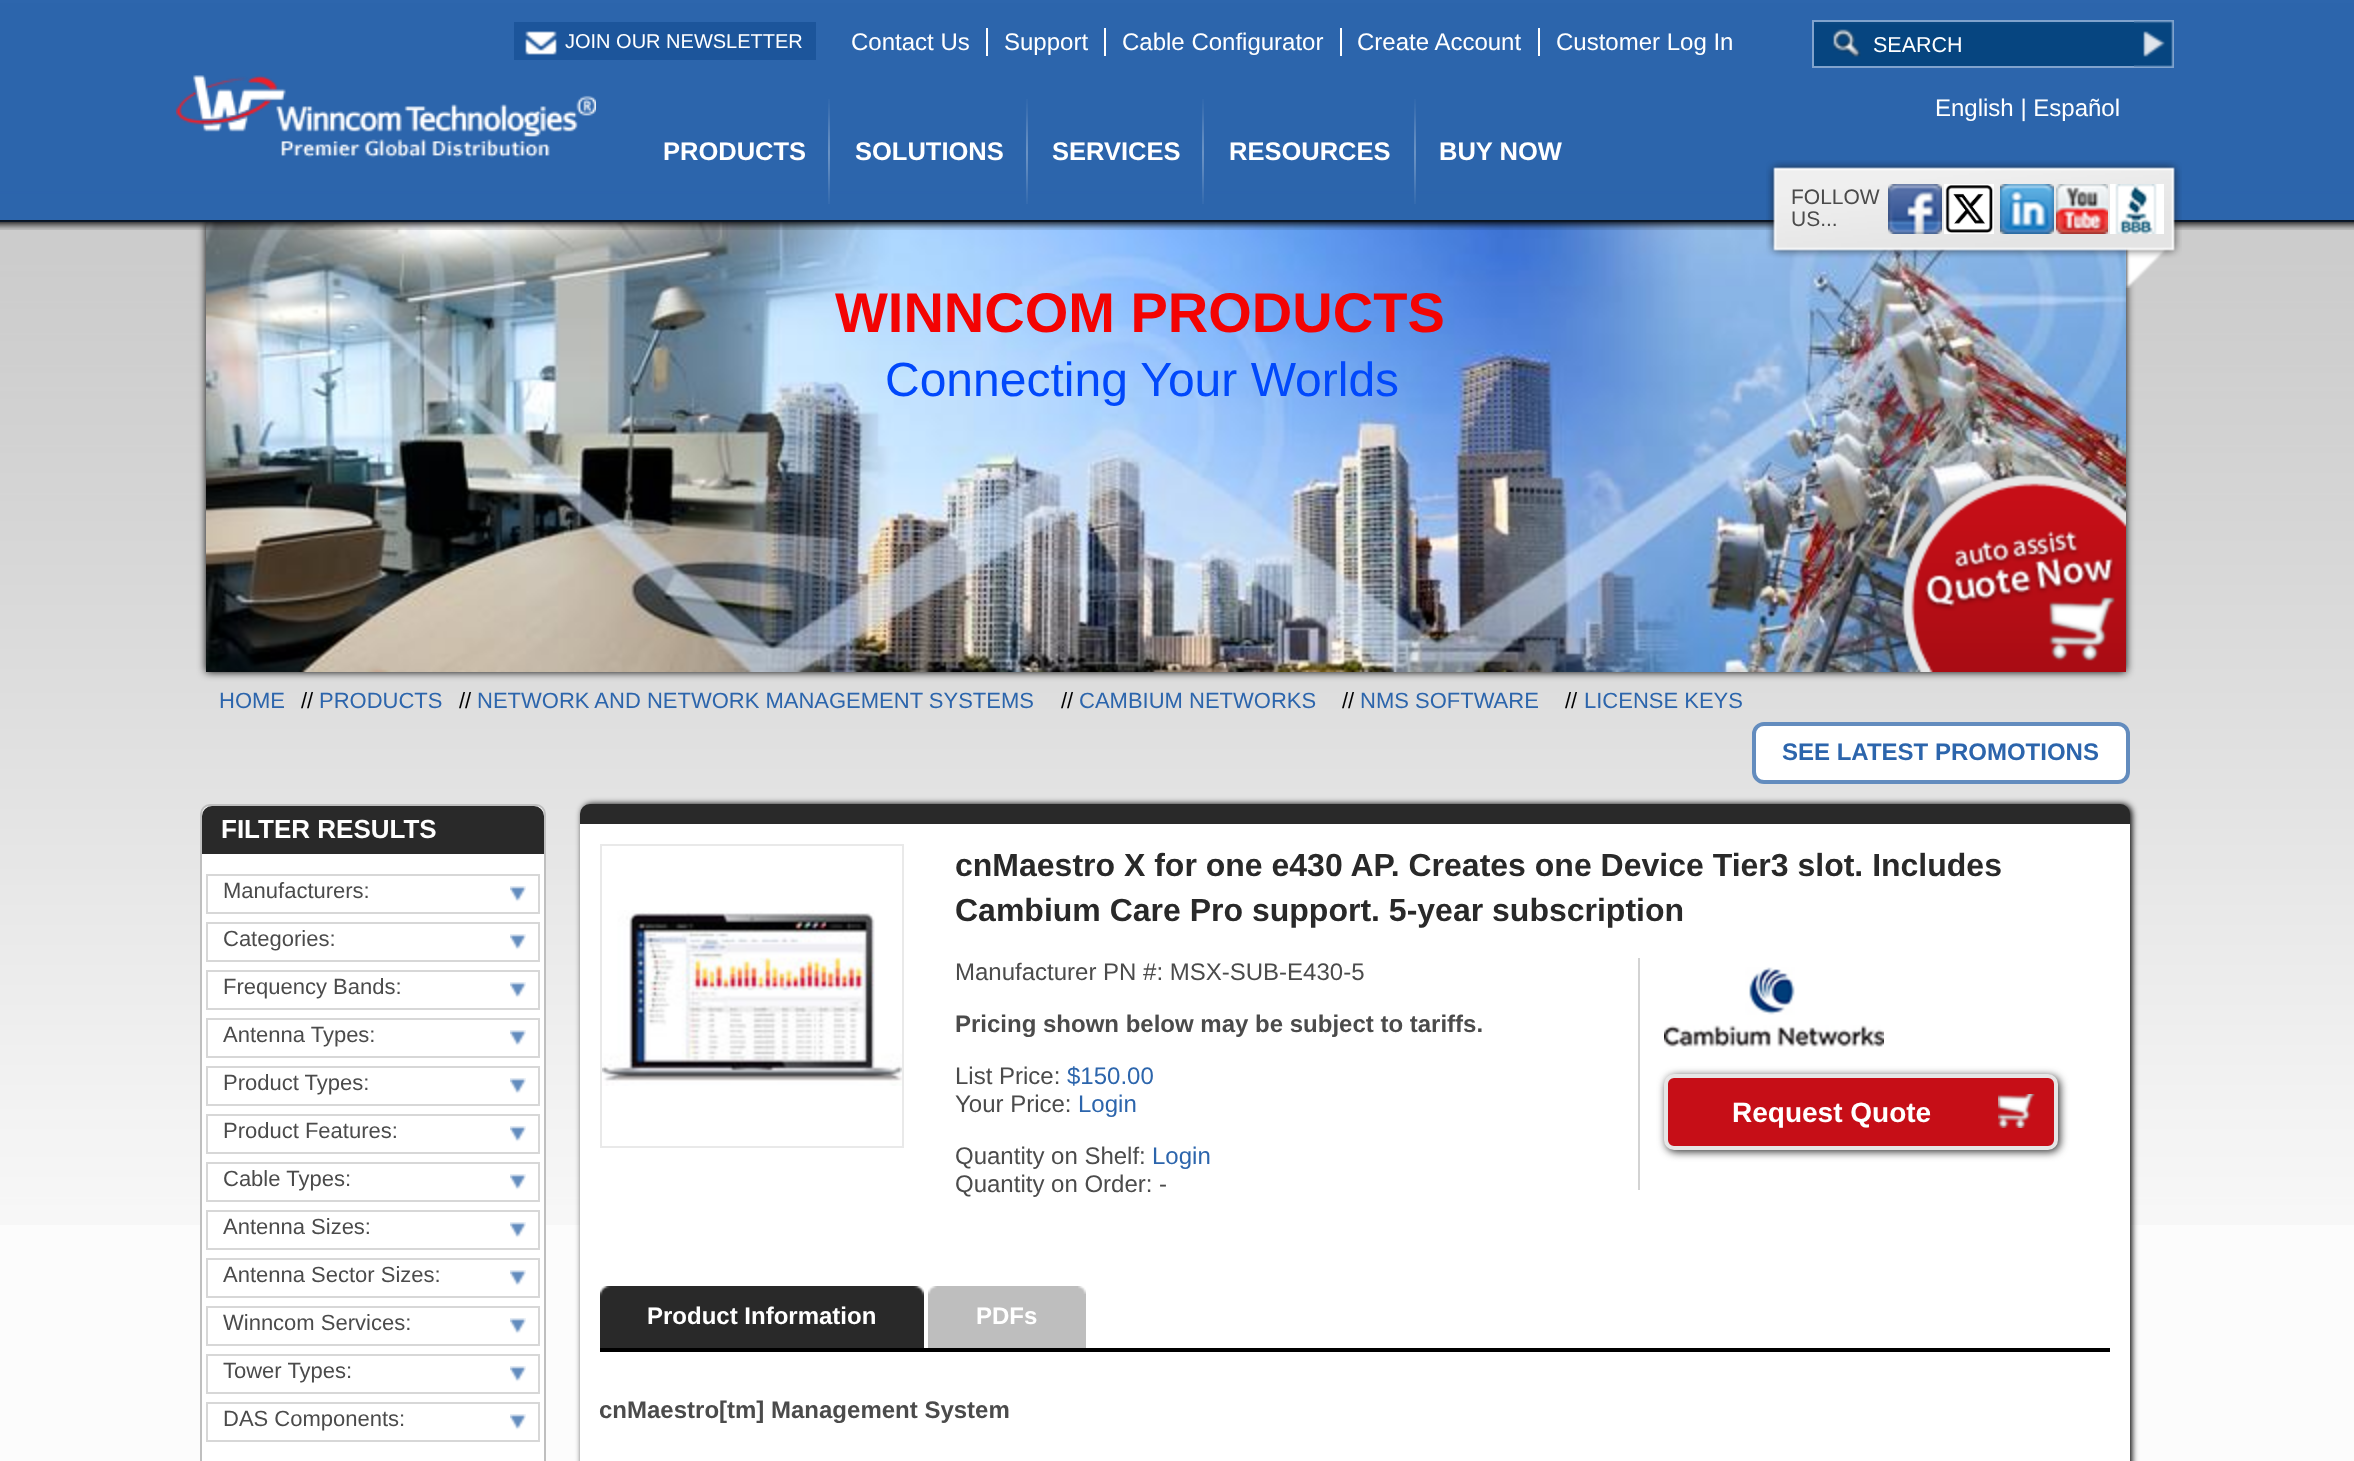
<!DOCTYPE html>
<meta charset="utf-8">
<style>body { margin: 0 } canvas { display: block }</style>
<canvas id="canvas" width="2354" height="1461"></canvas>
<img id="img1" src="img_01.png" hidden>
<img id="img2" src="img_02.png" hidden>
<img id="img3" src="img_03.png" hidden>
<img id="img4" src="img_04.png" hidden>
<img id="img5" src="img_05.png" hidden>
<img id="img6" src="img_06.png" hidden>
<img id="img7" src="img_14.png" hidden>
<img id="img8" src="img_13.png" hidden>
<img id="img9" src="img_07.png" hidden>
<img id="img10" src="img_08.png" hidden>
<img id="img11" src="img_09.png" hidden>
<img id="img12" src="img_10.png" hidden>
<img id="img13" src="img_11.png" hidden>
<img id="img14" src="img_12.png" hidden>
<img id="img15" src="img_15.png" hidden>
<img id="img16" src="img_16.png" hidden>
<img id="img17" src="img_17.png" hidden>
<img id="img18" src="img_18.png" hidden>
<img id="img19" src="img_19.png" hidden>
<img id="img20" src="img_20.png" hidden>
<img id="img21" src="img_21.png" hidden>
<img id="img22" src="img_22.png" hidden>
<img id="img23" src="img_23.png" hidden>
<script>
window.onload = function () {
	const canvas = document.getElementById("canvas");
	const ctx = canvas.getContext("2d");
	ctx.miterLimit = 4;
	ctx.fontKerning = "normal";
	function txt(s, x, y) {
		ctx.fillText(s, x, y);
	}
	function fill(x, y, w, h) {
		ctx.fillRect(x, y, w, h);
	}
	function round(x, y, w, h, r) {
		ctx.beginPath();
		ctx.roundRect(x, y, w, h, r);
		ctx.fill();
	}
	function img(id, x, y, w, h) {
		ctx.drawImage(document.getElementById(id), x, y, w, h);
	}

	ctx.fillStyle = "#FCFCFC";
	fill(0, 0, 2354, 1461);
	img("img1", 0, 0, 2354, 1225);
	ctx.fillStyle = "#000000";
	ctx.filter = "blur(4px)";
	ctx.beginPath();
	ctx.rect(206, 222, 1920, 450);
	ctx.fill();
	ctx.filter = "none";
	ctx.fillStyle = "#2C65AC";
	fill(0, 194, 2354, 28);
	ctx.fillStyle = "#1C559B";
	fill(514, 22, 302, 38);
	img("img2", 525, 31, 32, 24);
	ctx.fillStyle = "#FFFFFF";
	fill(986, 28, 2, 28);
	fill(1104, 28, 2, 28);
	fill(1340, 28, 2, 28);
	fill(1538, 28, 2, 28);
	ctx.fillStyle = "#064580";
	fill(1814, 57, 320, 9);
	img("img3", 1814, 22, 320, 35);
	ctx.fillStyle = "#80A3CD";
	fill(1812, 20, 322, 2);
	fill(1812, 66, 322, 2);
	fill(1812, 20, 2, 48);
	img("img4", 2134, 20, 40, 48);
	img("img5", 176, 75, 420, 83);
	img("img6", 828, 99, 2, 105);
	img("img6", 1026, 99, 2, 105);
	img("img6", 1202, 99, 2, 105);
	img("img6", 1414, 99, 2, 105);
	img("img7", 206, 222, 1920, 450);
	img("img8", 0, 220, 2354, 10);
	img("img9", 1766, 160, 416, 128);
	img("img10", 1888, 184, 54, 50);
	img("img11", 1944, 184, 50, 50);
	img("img12", 2000, 184, 54, 50);
	img("img13", 2056, 184, 52, 50);
	img("img14", 2110, 184, 54, 50);
	img("img15", 1899, 470, 227, 202);
	ctx.fillStyle = "#FFFFFF";
	ctx.beginPath();
	ctx.roundRect(1754, 724, 374, 58, 10);
	ctx.fill();
	ctx.strokeStyle = "#638CBE";
	ctx.lineWidth = 4;
	ctx.stroke();
	round(202, 806, 342, 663, 8);
	ctx.beginPath();
	ctx.roundRect(201, 805, 344, 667, 9);
	ctx.strokeStyle = "#BFBFBF";
	ctx.lineWidth = 2;
	ctx.stroke();
	ctx.fillStyle = "#292929";
	ctx.beginPath();
	ctx.roundRect(202, 806, 342, 48, [10, 10, 0, 0]);
	ctx.fill();
	ctx.strokeStyle = "#D7D7D7";
	ctx.strokeRect(207, 875, 332, 38);
	img("img16", 510, 886, 16, 16);
	ctx.strokeRect(207, 923, 332, 38);
	img("img16", 510, 934, 16, 16);
	ctx.strokeRect(207, 971, 332, 38);
	img("img16", 510, 982, 16, 16);
	ctx.strokeRect(207, 1019, 332, 38);
	img("img16", 510, 1030, 16, 16);
	ctx.strokeRect(207, 1067, 332, 38);
	img("img16", 510, 1078, 16, 16);
	ctx.strokeRect(207, 1115, 332, 38);
	img("img16", 510, 1126, 16, 16);
	ctx.strokeRect(207, 1163, 332, 38);
	img("img16", 510, 1174, 16, 16);
	ctx.strokeRect(207, 1211, 332, 38);
	img("img16", 510, 1222, 16, 16);
	ctx.strokeRect(207, 1259, 332, 38);
	img("img16", 510, 1270, 16, 16);
	ctx.strokeRect(207, 1307, 332, 38);
	img("img16", 510, 1318, 16, 16);
	ctx.strokeRect(207, 1355, 332, 38);
	img("img16", 510, 1366, 16, 16);
	ctx.strokeRect(207, 1403, 332, 38);
	img("img16", 510, 1414, 16, 16);
	ctx.fillStyle = "#000000";
	ctx.filter = "blur(3px)";
	ctx.beginPath();
	ctx.roundRect(582, 804, 1550, 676, 10);
	ctx.fill();
	ctx.filter = "none";
	ctx.fillStyle = "#292929";
	round(580, 804, 1550, 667, 10);
	ctx.fillStyle = "#FFFFFF";
	fill(580, 824, 1550, 637);
	ctx.strokeStyle = "#E9E9E9";
	ctx.strokeRect(601, 845, 302, 302);
	img("img17", 602, 910, 300, 176);
	ctx.fillStyle = "#D3D3D3";
	fill(1638, 958, 2, 232);
	img("img18", 1664, 967, 220, 80);
	ctx.fillStyle = "#333333";
	ctx.filter = "blur(4px)";
	ctx.beginPath();
	ctx.roundRect(1666, 1076, 394, 76, 10);
	ctx.fill();
	ctx.filter = "none";
	ctx.fillStyle = "#C60E17";
	ctx.beginPath();
	ctx.roundRect(1666, 1076, 390, 72, 8);
	ctx.fill();
	ctx.strokeStyle = "#E6E6E6";
	ctx.lineWidth = 4;
	ctx.stroke();
	img("img19", 1998, 1094, 37, 34);
	ctx.fillStyle = "#000000";
	fill(600, 1348, 1510, 4);
	img("img20", 876, 1286, 48, 62);
	img("img21", 600, 1286, 276, 62);
	ctx.fillStyle = "#BEBEBE";
	fill(928, 1286, 158, 62);
	img("img22", 1078, 1286, 8, 8);
	img("img23", 928, 1286, 9, 8);
	ctx.font = "20px Liberation Sans";
	ctx.fillStyle = "#FFFFFF";
	txt("JOIN OUR NEWSLETTER", 565, 48);
	ctx.font = "24px Liberation Sans";
	txt("Contact Us", 851, 50);
	txt("Support", 1004, 50);
	txt("Cable Configurator", 1122, 50);
	txt("Create Account", 1357, 50);
	txt("Customer Log In", 1556, 50);
	ctx.font = "21.5px Liberation Sans";
	txt("SEARCH", 1873, 52);
	ctx.font = "24px Liberation Sans";
	txt("English | Español", 1935, 116);
	ctx.font = "bold 25.5px Liberation Sans";
	txt("PRODUCTS", 663, 160);
	txt("SOLUTIONS", 855, 160);
	txt("SERVICES", 1052, 160);
	txt("RESOURCES", 1229, 160);
	txt("BUY NOW", 1439, 160);
	ctx.font = "21px Liberation Sans";
	ctx.fillStyle = "#4B4B4B";
	txt("FOLLOW", 1791, 204);
	txt("US...", 1791, 226);
	ctx.font = "bold 56px Liberation Sans";
	ctx.fillStyle = "#F30303";
	txt("WINNCOM PRODUCTS", 835, 332);
	ctx.font = "48px Liberation Sans";
	ctx.fillStyle = "#0148FB";
	txt("Connecting Your Worlds", 885, 396);
	ctx.font = "22px Liberation Sans";
	ctx.fillStyle = "#2C65AC";
	txt("HOME", 219, 708);
	ctx.fillStyle = "#000000";
	txt("//", 301, 708);
	ctx.fillStyle = "#2C65AC";
	txt("PRODUCTS", 319, 708);
	ctx.fillStyle = "#000000";
	txt("//", 459, 708);
	ctx.fillStyle = "#2C65AC";
	txt("NETWORK AND NETWORK MANAGEMENT SYSTEMS", 477, 708);
	ctx.fillStyle = "#000000";
	txt("//", 1061, 708);
	ctx.fillStyle = "#2C65AC";
	txt("CAMBIUM NETWORKS", 1079, 708);
	ctx.fillStyle = "#000000";
	txt("//", 1342, 708);
	ctx.fillStyle = "#2C65AC";
	txt("NMS SOFTWARE", 1360, 708);
	ctx.fillStyle = "#000000";
	txt("//", 1565, 708);
	ctx.fillStyle = "#2C65AC";
	txt("LICENSE KEYS", 1584, 708);
	ctx.font = "bold 24px Liberation Sans";
	txt("SEE LATEST PROMOTIONS", 1782, 760);
	ctx.font = "bold 26px Liberation Sans";
	ctx.fillStyle = "#FFFFFF";
	txt("FILTER RESULTS", 221, 838);
	ctx.font = "22px Liberation Sans";
	ctx.fillStyle = "#4B4B4B";
	txt("Manufacturers:", 223, 898);
	txt("Categories:", 223, 946);
	txt("Frequency Bands:", 223, 994);
	txt("Antenna Types:", 223, 1042);
	txt("Product Types:", 223, 1090);
	txt("Product Features:", 223, 1138);
	txt("Cable Types:", 223, 1186);
	txt("Antenna Sizes:", 223, 1234);
	txt("Antenna Sector Sizes:", 223, 1282);
	txt("Winncom Services:", 223, 1330);
	txt("Tower Types:", 223, 1378);
	txt("DAS Components:", 223, 1426);
	ctx.font = "bold 32px Liberation Sans";
	ctx.fillStyle = "#292929";
	txt("cnMaestro X for one e430 AP. Creates one Device Tier3 slot. Includes", 955, 876);
	txt("Cambium Care Pro support. 5-year subscription", 955, 921);
	ctx.font = "24px Liberation Sans";
	ctx.fillStyle = "#4B4B4B";
	txt("Manufacturer PN #: MSX-SUB-E430-5", 955, 980);
	ctx.font = "bold 24px Liberation Sans";
	txt("Pricing shown below may be subject to tariffs.", 955, 1032);
	ctx.font = "24px Liberation Sans";
	txt("List Price:", 955, 1084);
	ctx.fillStyle = "#2C65AC";
	txt("$150.00", 1067, 1084);
	ctx.fillStyle = "#4B4B4B";
	txt("Your Price:", 955, 1112);
	ctx.fillStyle = "#2C65AC";
	txt("Login", 1078, 1112);
	ctx.fillStyle = "#4B4B4B";
	txt("Quantity on Shelf:", 955, 1164);
	ctx.fillStyle = "#2C65AC";
	txt("Login", 1152, 1164);
	ctx.fillStyle = "#4B4B4B";
	txt("Quantity on Order: -", 955, 1192);
	ctx.font = "bold 28px Liberation Sans";
	ctx.fillStyle = "#FFFFFF";
	txt("Request Quote", 1732, 1122);
	ctx.font = "bold 24px Liberation Sans";
	txt("Product Information", 647, 1324);
	txt("PDFs", 976, 1324);
	ctx.fillStyle = "#4B4B4B";
	txt("cnMaestro[tm] Management System", 599, 1418);
};
</script>
